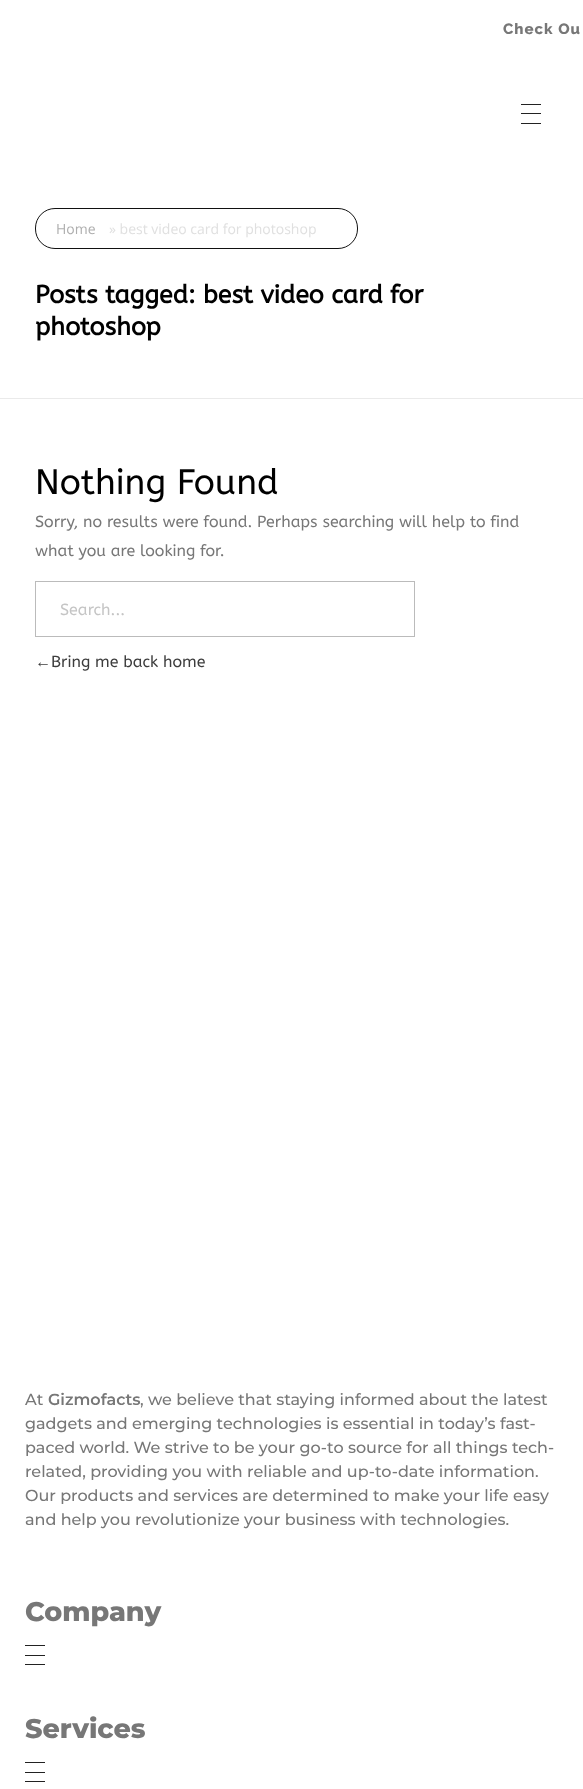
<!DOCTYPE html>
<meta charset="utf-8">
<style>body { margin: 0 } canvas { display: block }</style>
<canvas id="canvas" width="583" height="1789"></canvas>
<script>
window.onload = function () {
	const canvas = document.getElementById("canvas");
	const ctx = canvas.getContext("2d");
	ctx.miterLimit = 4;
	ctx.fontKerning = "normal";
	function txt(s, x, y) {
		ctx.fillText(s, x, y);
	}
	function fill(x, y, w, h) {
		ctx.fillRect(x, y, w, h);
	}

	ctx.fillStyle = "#FFFFFF";
	fill(0, 0, 583, 1789);
	ctx.fillStyle = "#222222";
	fill(521, 104, 20, 1);
	fill(521, 113, 20, 1);
	fill(521, 123, 20, 1);
	ctx.fillStyle = "#EAEAEA";
	fill(0, 398, 583, 1);
	ctx.beginPath();
	ctx.roundRect(35.5, 208.5, 322, 40, 19.5);
	ctx.strokeStyle = "#111111";
	ctx.stroke();
	ctx.strokeStyle = "#BBBBBB";
	ctx.strokeRect(35.5, 581.5, 379, 55);
	ctx.fillStyle = "#222222";
	fill(25, 1645, 20, 1);
	fill(25, 1655, 20, 1);
	fill(25, 1664, 20, 1);
	fill(25, 1762, 20, 1);
	fill(25, 1772, 20, 1);
	fill(25, 1781, 20, 1);
	ctx.letterSpacing = "1px";
	ctx.font = "800 15px Raleway";
	ctx.fillStyle = "#777777";
	txt("Check Ou", 503, 34);
	ctx.letterSpacing = "0px";
	ctx.font = "14px Open Sans";
	ctx.fillStyle = "#AEAEAE";
	txt("Home", 56, 234);
	ctx.fillStyle = "#E0E0E0";
	txt("» best video card for photoshop", 109, 234);
	ctx.font = "bold 25px ABeeZee";
	ctx.fillStyle = "#000000";
	txt("Posts tagged: best video card for", 35, 303);
	txt("photoshop", 35, 335);
	ctx.font = "35.25px ABeeZee";
	txt("Nothing Found", 35, 494);
	ctx.font = "16px ABeeZee";
	ctx.fillStyle = "#777777";
	txt("Sorry, no results were found. Perhaps searching will help to find", 35, 527);
	txt("what you are looking for.", 35, 556);
	ctx.fillStyle = "#C5C5C5";
	txt("Search...", 60, 615);
	ctx.font = "16px Liberation Sans";
	ctx.fillStyle = "#3D3D3D";
	txt("←", 35, 667);
	ctx.font = "16px ABeeZee";
	txt("Bring me back home", 51, 667);
	ctx.font = "500 16px Montserrat";
	ctx.fillStyle = "#777777";
	txt("At", 25, 1405);
	ctx.font = "600 16px Montserrat";
	txt("Gizmofacts", 48, 1405);
	ctx.font = "500 16px Montserrat";
	txt(", we believe that staying informed about the latest", 140, 1405);
	txt("gadgets and emerging technologies is essential in today’s fast-", 25, 1429);
	txt("paced world. We strive to be your go-to source for all things tech-", 25, 1453);
	txt("related, providing you with reliable and up-to-date information.", 25, 1477);
	txt("Our products and services are determined to make your life easy", 25, 1501);
	txt("and help you revolutionize your business with technologies.", 25, 1525);
	ctx.font = "800 27px Montserrat";
	txt("Company", 25, 1621);
	txt("Services", 25, 1738);
};
</script>
